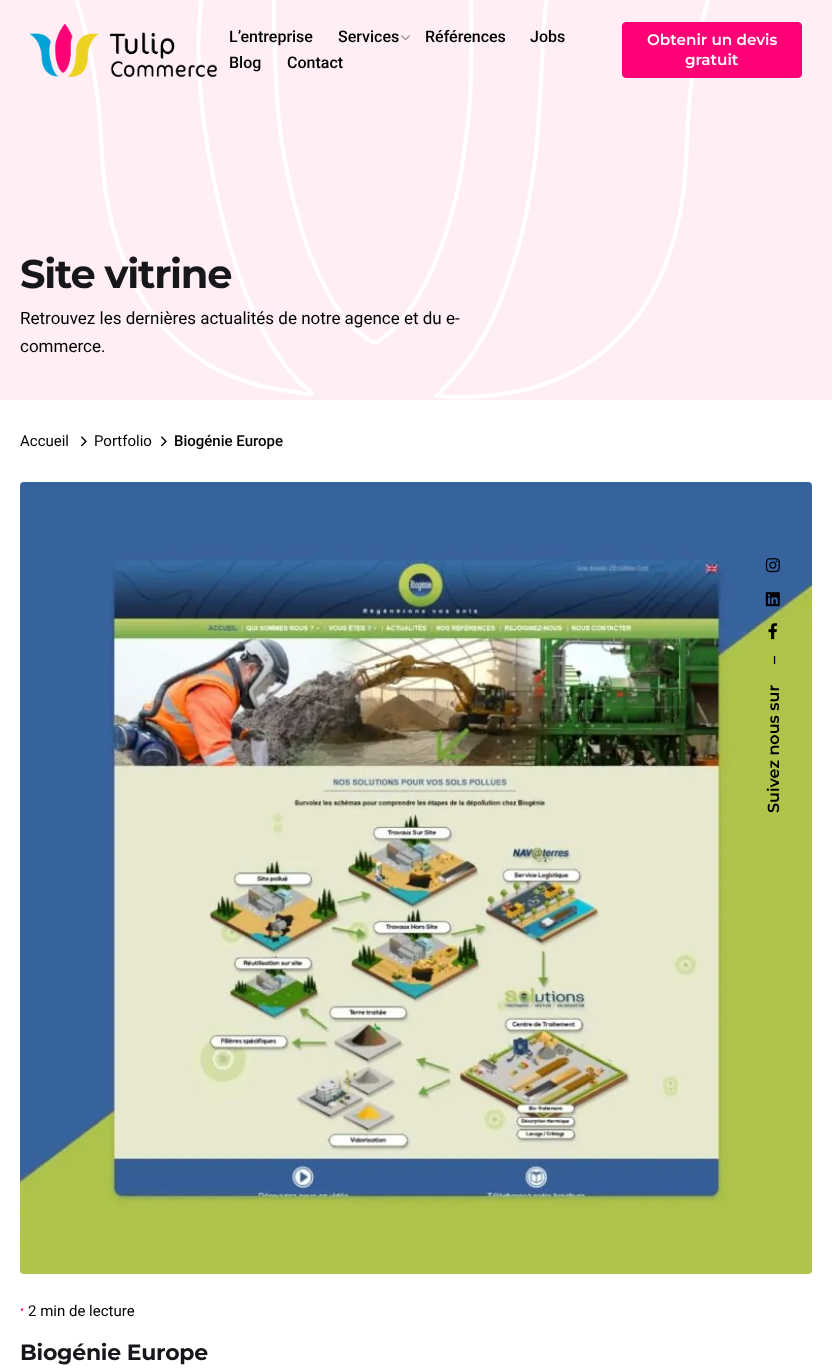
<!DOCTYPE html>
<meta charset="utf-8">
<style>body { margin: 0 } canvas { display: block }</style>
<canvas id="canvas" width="832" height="1371"></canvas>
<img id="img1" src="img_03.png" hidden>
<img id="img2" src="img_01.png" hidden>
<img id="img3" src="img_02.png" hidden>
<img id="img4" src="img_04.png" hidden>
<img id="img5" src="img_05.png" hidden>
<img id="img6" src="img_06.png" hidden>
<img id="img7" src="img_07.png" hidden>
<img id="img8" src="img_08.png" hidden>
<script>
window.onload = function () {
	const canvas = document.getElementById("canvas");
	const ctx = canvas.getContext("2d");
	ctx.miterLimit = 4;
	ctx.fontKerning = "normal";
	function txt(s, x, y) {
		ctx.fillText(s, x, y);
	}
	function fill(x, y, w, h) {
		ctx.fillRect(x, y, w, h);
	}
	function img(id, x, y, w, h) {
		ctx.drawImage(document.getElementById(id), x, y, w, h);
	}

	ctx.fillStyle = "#FFFFFF";
	fill(0, 0, 832, 1371);
	ctx.fillStyle = "#FFEFF4";
	fill(0, 0, 832, 400);
	img("img1", 74, 0, 636, 400);
	img("img2", 30, 23, 187, 54);
	img("img3", 401, 35, 9, 6);
	ctx.fillStyle = "#FF0076";
	ctx.beginPath();
	ctx.roundRect(622.5, 22.5, 179, 55, 3.5);
	ctx.fill();
	ctx.strokeStyle = "#FF0076";
	ctx.stroke();
	img("img4", 81, 436, 6, 11);
	img("img4", 161, 436, 6, 11);
	img("img5", 20, 482, 792, 792);
	img("img6", 765, 558, 15, 15);
	img("img7", 765, 592, 15, 15);
	img("img8", 768, 623, 10, 17);
	ctx.font = "500 16px Roboto";
	ctx.fillStyle = "#000000";
	txt("L’entreprise", 229, 42);
	txt("Services", 338, 42);
	txt("Références", 425, 42);
	txt("Jobs", 530, 42);
	txt("Blog", 229, 68);
	txt("Contact", 287, 68);
	ctx.font = "600 15.25px Montserrat";
	ctx.fillStyle = "#FFFFFF";
	txt("Obtenir un devis", 647, 45);
	txt("gratuit", 685, 65);
	ctx.letterSpacing = "-1.25px";
	ctx.font = "bold 40px Montserrat";
	ctx.fillStyle = "#17161A";
	txt("Site vitrine", 20, 288);
	ctx.letterSpacing = "0px";
	ctx.font = "17px Roboto";
	ctx.fillStyle = "#000000";
	txt("Retrouvez les dernières actualités de notre agence et du e-", 20, 324);
	txt("commerce.", 20, 352);
	ctx.font = "15px Roboto";
	txt("Accueil", 20, 446);
	txt("Portfolio", 94, 446);
	ctx.font = "500 15px Roboto";
	txt("Biogénie Europe", 174, 446);
	ctx.font = "12px Roboto";
	ctx.fillStyle = "#FF087A";
	txt("•", 20, 1314);
	ctx.font = "15px Roboto";
	ctx.fillStyle = "#000000";
	txt("2 min de lecture", 28, 1316);
	ctx.letterSpacing = "-0.25px";
	ctx.font = "bold 22px Montserrat";
	ctx.fillStyle = "#17161A";
	txt("Biogénie Europe", 20, 1360);
	ctx.letterSpacing = "0px";
	ctx.font = "600 16px Montserrat";
	ctx.fillStyle = "#000000";
	ctx.save();
	ctx.translate(779, 664);
	ctx.rotate(-90 * Math.PI / 180);
	ctx.fillText("–", 0, 0);
	ctx.restore();
	ctx.save();
	ctx.translate(779, 813);
	ctx.rotate(-90 * Math.PI / 180);
	ctx.fillText("Suivez nous sur", 0, 0);
	ctx.restore();
};
</script>
